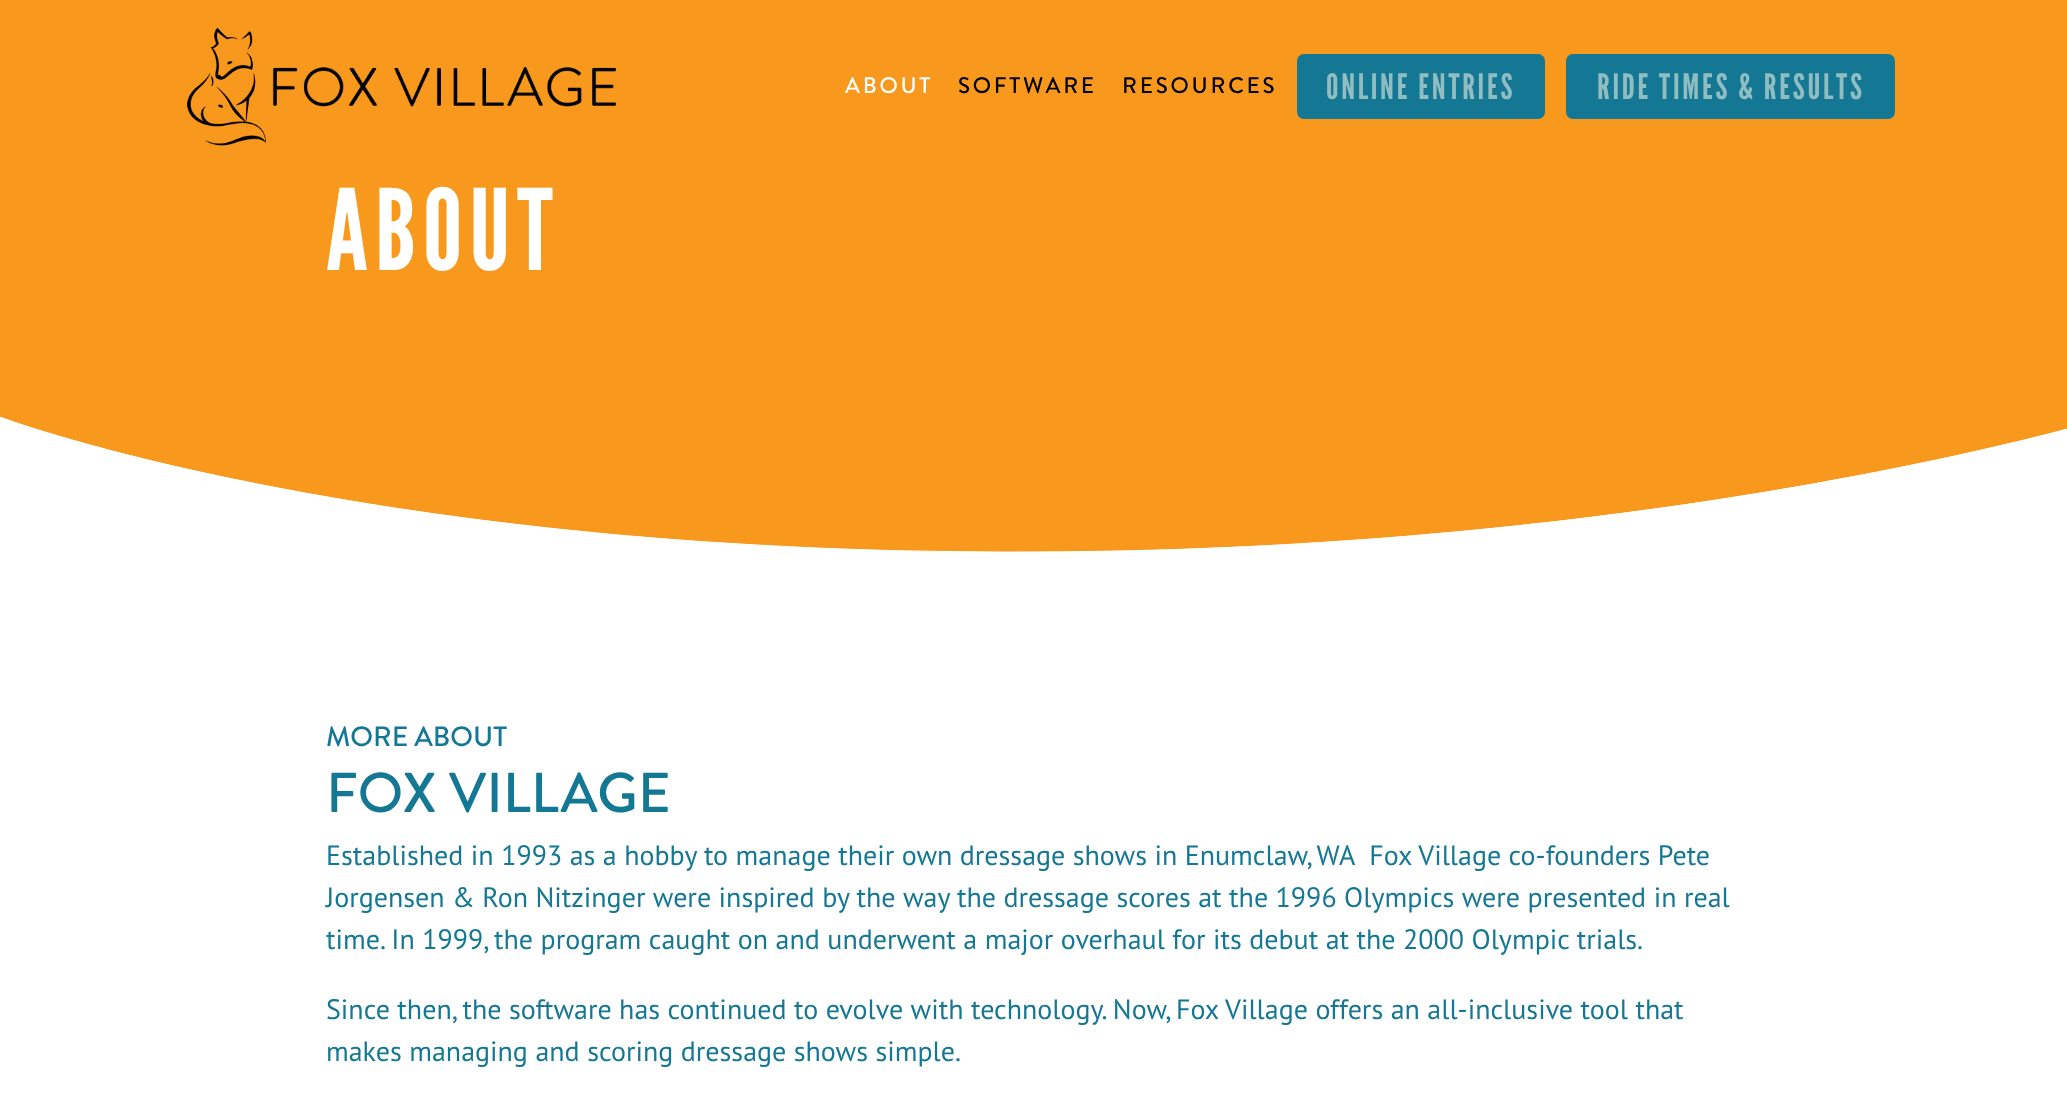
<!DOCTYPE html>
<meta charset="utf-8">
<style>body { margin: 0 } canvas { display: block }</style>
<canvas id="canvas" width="2067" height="1097"></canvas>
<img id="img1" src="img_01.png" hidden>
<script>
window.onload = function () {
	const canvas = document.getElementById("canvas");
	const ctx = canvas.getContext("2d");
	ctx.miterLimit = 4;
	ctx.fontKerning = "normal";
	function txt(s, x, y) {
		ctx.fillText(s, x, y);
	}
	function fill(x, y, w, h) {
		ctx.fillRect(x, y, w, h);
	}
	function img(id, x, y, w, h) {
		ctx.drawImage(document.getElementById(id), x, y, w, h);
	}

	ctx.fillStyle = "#FFFFFF";
	fill(0, 0, 2067, 1097);
	ctx.fillStyle = "#F8991D";
	fill(0, 0, 2067, 552);
	img("img1", 187, 27, 429, 119);
	ctx.fillStyle = "#147793";
	ctx.beginPath();
	ctx.roundRect(1298, 55, 246, 63, 6);
	ctx.fill();
	ctx.strokeStyle = "#147793";
	ctx.lineWidth = 2;
	ctx.stroke();
	ctx.beginPath();
	ctx.roundRect(1567, 55, 327, 63, 6);
	ctx.fill();
	ctx.stroke();
	ctx.fillStyle = "#FFFFFF";
	ctx.beginPath();
	ctx.moveTo(1, 669);
	ctx.lineTo(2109, 669);
	ctx.lineTo(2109, 417);
	ctx.bezierCurveTo(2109, 417, 1665, 554, 998, 552);
	ctx.bezierCurveTo(353, 550, 1, 417, 1, 417);
	ctx.closePath();
	ctx.fill();
	ctx.beginPath();
	ctx.moveTo(0.5, 669);
	ctx.lineTo(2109.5, 669);
	ctx.lineTo(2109.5, 417.5);
	ctx.bezierCurveTo(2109.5, 417.5, 1665, 554.5, 998.5, 552);
	ctx.bezierCurveTo(352.5, 550, 0.5, 417.5, 0.5, 417.5);
	ctx.closePath();
	ctx.strokeStyle = "#FFFFFF";
	ctx.lineWidth = 1.1;
	ctx.stroke();
	ctx.letterSpacing = "2.75px";
	ctx.font = "500 22.5px Brandon Grotesque";
	txt("ABOUT", 845, 93);
	ctx.fillStyle = "#000000";
	txt("SOFTWARE", 958, 93);
	txt("RESOURCES", 1122, 93);
	ctx.font = "35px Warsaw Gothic";
	ctx.fillStyle = "#90BDC2";
	txt("ONLINE ENTRIES", 1326, 99);
	txt("RIDE TIMES & RESULTS", 1597, 99);
	ctx.letterSpacing = "7px";
	ctx.font = "112px Warsaw Gothic";
	ctx.fillStyle = "#FFFFFF";
	txt("ABOUT", 326, 270);
	ctx.letterSpacing = "0px";
	ctx.font = "500 28px Brandon Grotesque";
	ctx.fillStyle = "#147793";
	txt("MORE ABOUT", 326, 746);
	ctx.font = "500 56px Brandon Grotesque";
	txt("FOX VILLAGE", 326, 812);
	ctx.font = "28px PT Sans";
	txt("Established in 1993 as a hobby to manage their own dressage shows in Enumclaw, WA  Fox Village co-founders Pete", 326, 865);
	txt("Jorgensen & Ron Nitzinger were inspired by the way the dressage scores at the 1996 Olympics were presented in real", 326, 907);
	txt("time. In 1999, the program caught on and underwent a major overhaul for its debut at the 2000 Olympic trials.", 326, 949);
	txt("Since then, the software has continued to evolve with technology. Now, Fox Village offers an all-inclusive tool that", 326, 1019);
	txt("makes managing and scoring dressage shows simple.", 326, 1061);
};
</script>
